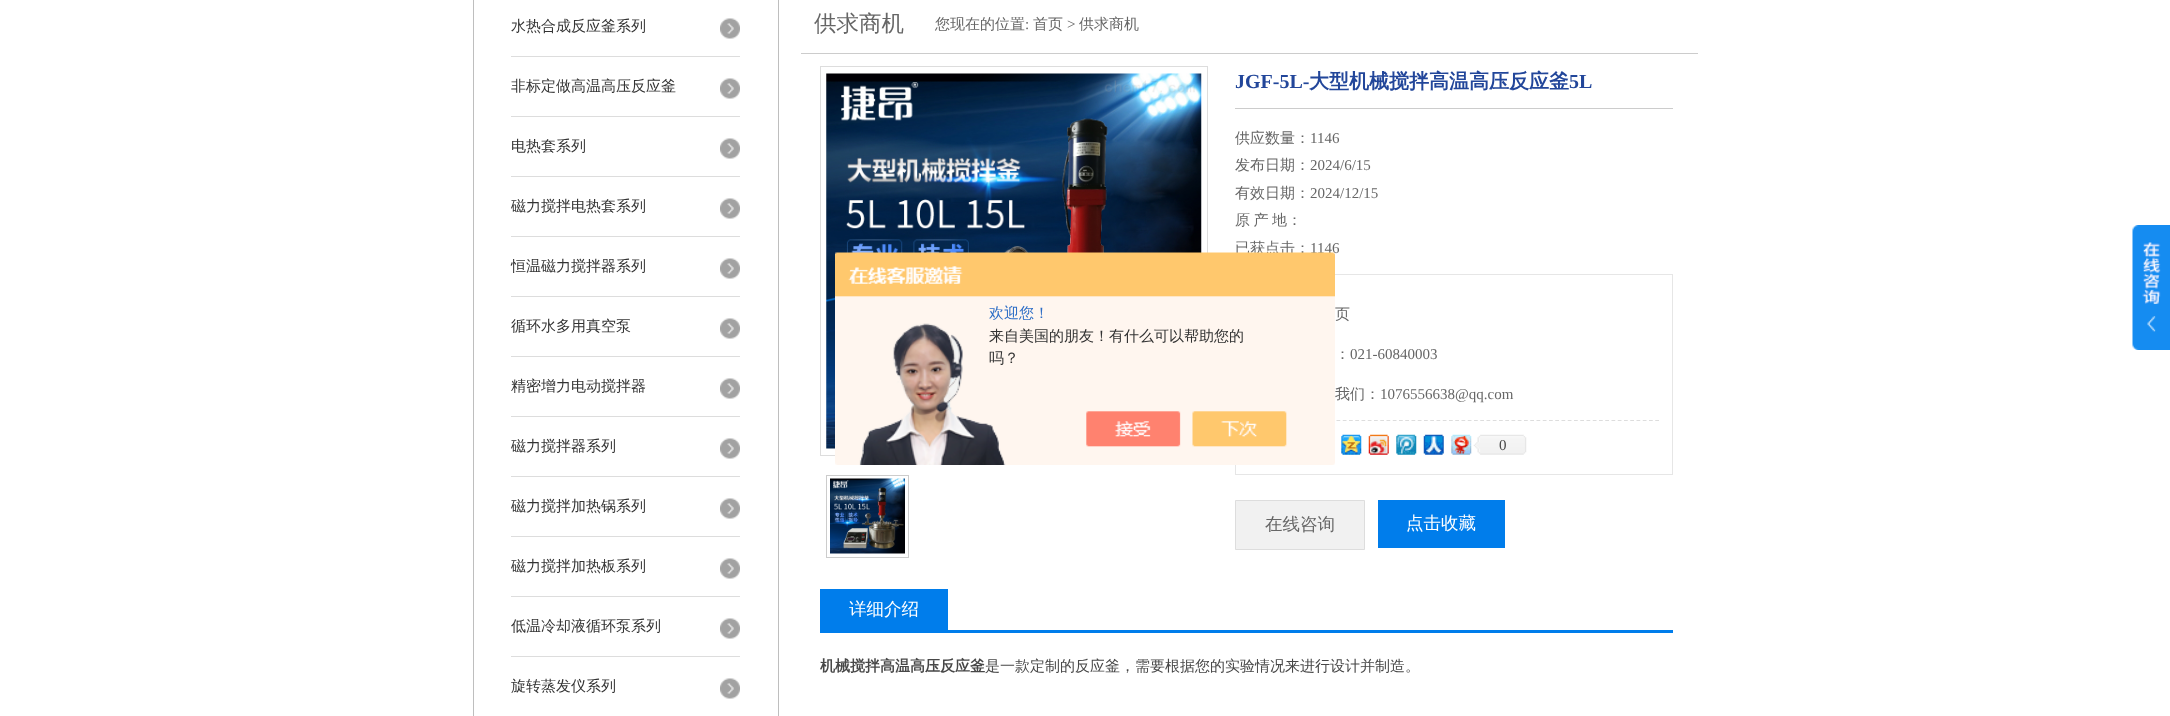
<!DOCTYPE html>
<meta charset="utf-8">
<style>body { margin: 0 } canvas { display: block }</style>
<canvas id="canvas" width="2170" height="716"></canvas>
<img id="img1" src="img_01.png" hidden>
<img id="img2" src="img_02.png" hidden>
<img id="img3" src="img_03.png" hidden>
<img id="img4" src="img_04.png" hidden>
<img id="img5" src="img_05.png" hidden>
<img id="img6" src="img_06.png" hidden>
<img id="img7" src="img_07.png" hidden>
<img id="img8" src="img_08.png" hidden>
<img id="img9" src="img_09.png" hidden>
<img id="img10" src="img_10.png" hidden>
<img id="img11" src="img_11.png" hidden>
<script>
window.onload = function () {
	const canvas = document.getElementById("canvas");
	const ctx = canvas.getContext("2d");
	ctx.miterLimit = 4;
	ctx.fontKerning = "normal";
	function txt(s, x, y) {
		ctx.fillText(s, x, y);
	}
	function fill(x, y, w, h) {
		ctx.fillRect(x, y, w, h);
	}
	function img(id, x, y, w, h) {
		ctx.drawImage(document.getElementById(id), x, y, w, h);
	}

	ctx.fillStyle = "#FFFFFF";
	fill(0, 0, 2170, 716);
	ctx.strokeStyle = "#BEBEBE";
	ctx.strokeRect(473.5, -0.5, 305, 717);
	img("img1", 720, 18, 20, 21);
	ctx.fillStyle = "#DDDDDD";
	fill(511, 56, 229, 1);
	img("img1", 720, 78, 20, 21);
	fill(511, 116, 229, 1);
	img("img1", 720, 138, 20, 21);
	fill(511, 176, 229, 1);
	img("img1", 720, 198, 20, 21);
	fill(511, 236, 229, 1);
	img("img1", 720, 258, 20, 21);
	fill(511, 296, 229, 1);
	img("img1", 720, 318, 20, 21);
	fill(511, 356, 229, 1);
	img("img1", 720, 378, 20, 21);
	fill(511, 416, 229, 1);
	img("img1", 720, 438, 20, 21);
	fill(511, 476, 229, 1);
	img("img1", 720, 498, 20, 21);
	fill(511, 536, 229, 1);
	img("img1", 720, 558, 20, 21);
	fill(511, 596, 229, 1);
	img("img1", 720, 618, 20, 21);
	fill(511, 656, 229, 1);
	img("img1", 720, 678, 20, 21);
	ctx.fillStyle = "#CCCCCC";
	fill(801, 53, 897, 1);
	ctx.strokeStyle = "#DDDDDD";
	ctx.strokeRect(820.5, 66.5, 387, 389);
	img("img2", 826, 73, 376, 376);
	ctx.strokeStyle = "#CCCCCC";
	ctx.strokeRect(826.5, 475.5, 82, 82);
	img("img3", 830, 478, 75, 76);
	fill(1235, 108, 438, 1);
	ctx.strokeStyle = "#E6E6E6";
	ctx.strokeRect(1235.5, 274.5, 437, 200);
	ctx.beginPath();
	ctx.moveTo(1249, 420.5);
	ctx.lineTo(1659, 420.5);
	ctx.strokeStyle = "#DDDDDD";
	ctx.lineWidth = 1.2;
	ctx.setLineDash([3.75, 2.5]);
	ctx.stroke();
	img("img4", 1341, 434, 21, 21);
	img("img5", 1368, 434, 21, 21);
	img("img6", 1396, 434, 21, 21);
	img("img7", 1423, 434, 21, 21);
	img("img8", 1451, 434, 21, 21);
	img("img9", 1473, 434, 54, 21);
	ctx.fillStyle = "#F1F1F1";
	ctx.beginPath();
	ctx.rect(1235.5, 500.5, 129, 49);
	ctx.fill();
	ctx.lineWidth = 1;
	ctx.setLineDash([]);
	ctx.stroke();
	ctx.fillStyle = "#007DEB";
	fill(1378, 500, 127, 48);
	fill(820, 630, 853, 3);
	fill(820, 589, 128, 41);
	img("img10", 2132, 225, 38, 125);
	ctx.font = "500 15px WenQuanYi Zen Hei";
	ctx.fillStyle = "#333333";
	txt("水热合成反应釜系列", 511, 31);
	txt("非标定做高温高压反应釜", 511, 91);
	txt("电热套系列", 511, 151);
	txt("磁力搅拌电热套系列", 511, 211);
	txt("恒温磁力搅拌器系列", 511, 271);
	txt("循环水多用真空泵", 511, 331);
	txt("精密增力电动搅拌器", 511, 391);
	txt("磁力搅拌器系列", 511, 451);
	txt("磁力搅拌加热锅系列", 511, 511);
	txt("磁力搅拌加热板系列", 511, 571);
	txt("低温冷却液循环泵系列", 511, 631);
	txt("旋转蒸发仪系列", 511, 691);
	ctx.font = "500 22.5px WenQuanYi Zen Hei";
	ctx.fillStyle = "#666666";
	txt("供求商机", 814, 31);
	ctx.font = "500 15px WenQuanYi Zen Hei";
	txt("您现在的位置", 935, 29);
	ctx.font = "15px Liberation Serif";
	txt(":", 1025, 29);
	ctx.font = "500 15px WenQuanYi Zen Hei";
	txt("首页", 1033, 29);
	ctx.font = "15px Liberation Serif";
	txt(">", 1067, 29);
	ctx.font = "500 15px WenQuanYi Zen Hei";
	txt("供求商机", 1079, 29);
	ctx.font = "bold 20px Liberation Serif";
	ctx.fillStyle = "#22469A";
	txt("JGF-5L-", 1235, 88);
	ctx.font = "bold 20px WenQuanYi Zen Hei";
	txt("大型机械搅拌高温高压反应釜", 1309, 88);
	ctx.font = "bold 20px Liberation Serif";
	txt("5L", 1569, 88);
	ctx.font = "500 15px WenQuanYi Zen Hei";
	ctx.fillStyle = "#666666";
	txt("供应数量：", 1235, 143);
	ctx.font = "15px Liberation Serif";
	txt("1146", 1310, 143);
	ctx.font = "500 15px WenQuanYi Zen Hei";
	txt("发布日期：", 1235, 170);
	ctx.font = "15px Liberation Serif";
	txt("2024/6/15", 1310, 170);
	ctx.font = "500 15px WenQuanYi Zen Hei";
	txt("有效日期：", 1235, 198);
	ctx.font = "15px Liberation Serif";
	txt("2024/12/15", 1310, 198);
	ctx.wordSpacing = "-1px";
	ctx.font = "500 15px WenQuanYi Zen Hei";
	txt("原 产 地：", 1235, 225);
	ctx.wordSpacing = "0px";
	txt("已获点击：", 1235, 253);
	ctx.font = "15px Liberation Serif";
	txt("1146", 1310, 253);
	ctx.font = "500 15px WenQuanYi Zen Hei";
	txt("页", 1335, 319);
	txt("：", 1335, 359);
	ctx.font = "15px Liberation Serif";
	txt("021-60840003", 1350, 359);
	ctx.font = "500 15px WenQuanYi Zen Hei";
	txt("我们：", 1335, 399);
	ctx.font = "15px Liberation Serif";
	txt("1076556638@qq.com", 1380, 399);
	ctx.fillStyle = "#474747";
	txt("0", 1499, 450);
	ctx.font = "500 17.5px WenQuanYi Zen Hei";
	ctx.fillStyle = "#666666";
	txt("在线咨询", 1265, 530);
	ctx.fillStyle = "#FFFFFF";
	txt("点击收藏", 1406, 529);
	txt("详细介绍", 849, 615);
	ctx.font = "bold 15px WenQuanYi Zen Hei";
	ctx.fillStyle = "#474747";
	txt("机械搅拌高温高压反应釜", 820, 671);
	ctx.font = "500 15px WenQuanYi Zen Hei";
	txt("是一款定制的反应釜，需要根据您的实验情况来进行设计并制造。", 985, 671);
	img("img11", 835, 252, 500, 213);
	ctx.fillStyle = "#2E6EC6";
	txt("欢迎您！", 989, 318);
	ctx.fillStyle = "#333333";
	txt("来自美国的朋友！有什么可以帮助您的", 989, 341);
	txt("吗？", 989, 363);
};
</script>
